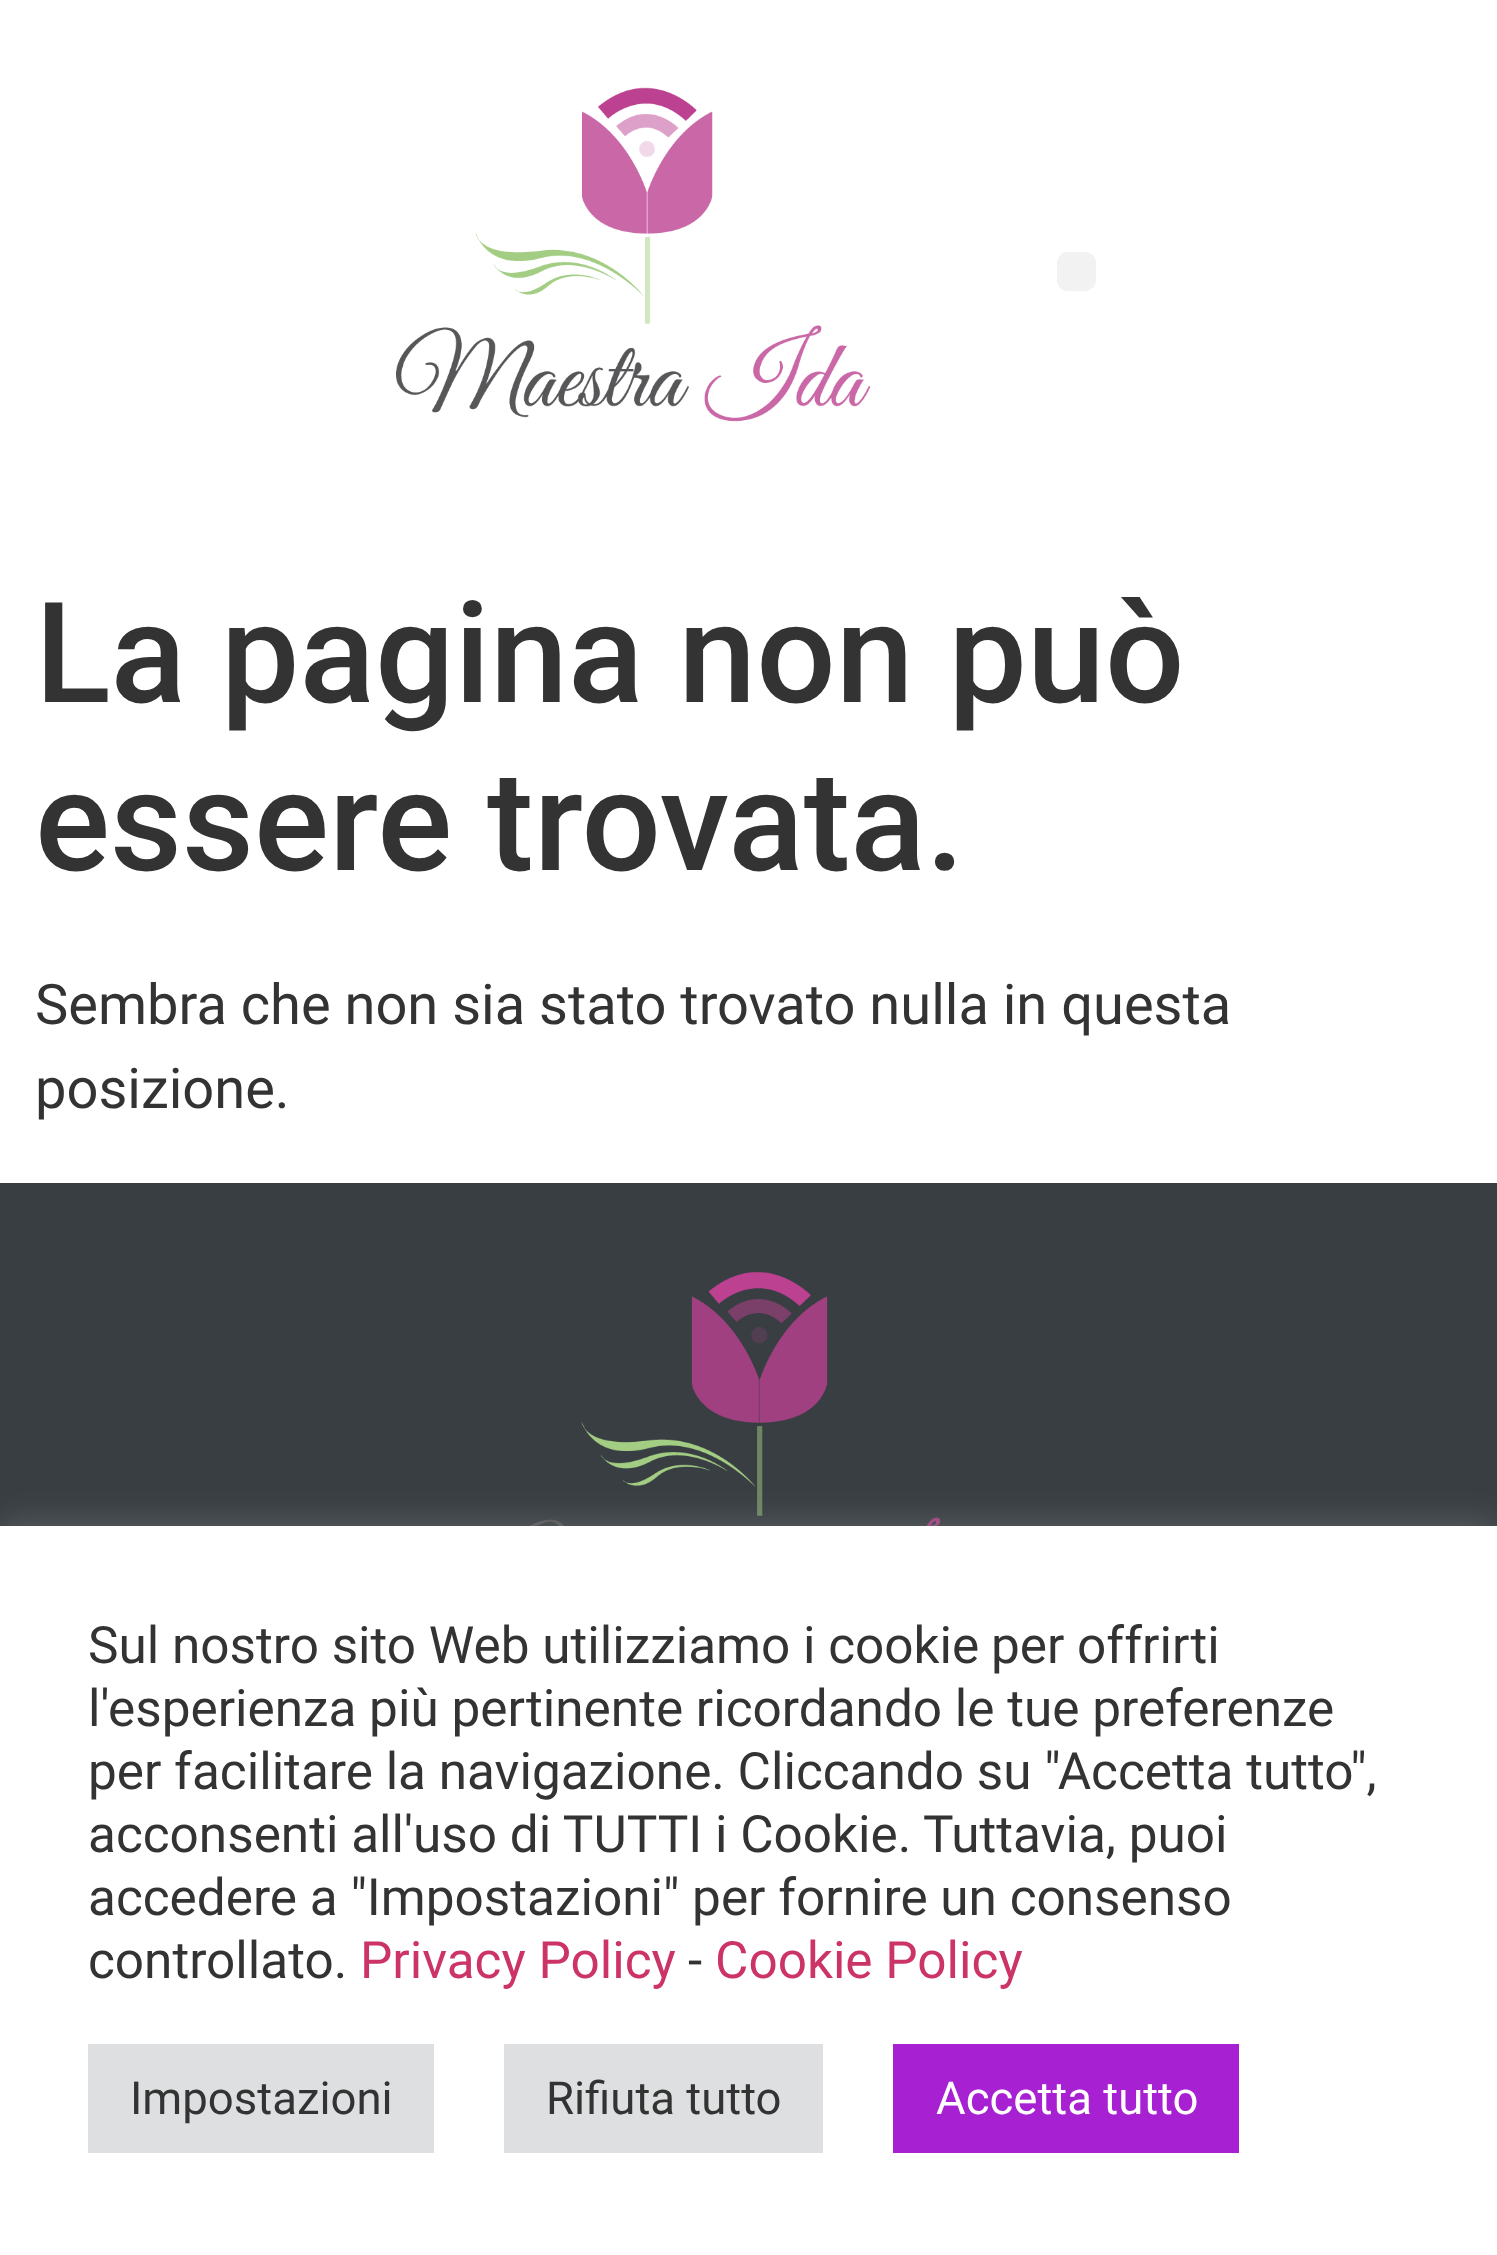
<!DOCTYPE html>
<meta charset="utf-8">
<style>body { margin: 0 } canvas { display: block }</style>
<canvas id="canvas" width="1497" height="2255"></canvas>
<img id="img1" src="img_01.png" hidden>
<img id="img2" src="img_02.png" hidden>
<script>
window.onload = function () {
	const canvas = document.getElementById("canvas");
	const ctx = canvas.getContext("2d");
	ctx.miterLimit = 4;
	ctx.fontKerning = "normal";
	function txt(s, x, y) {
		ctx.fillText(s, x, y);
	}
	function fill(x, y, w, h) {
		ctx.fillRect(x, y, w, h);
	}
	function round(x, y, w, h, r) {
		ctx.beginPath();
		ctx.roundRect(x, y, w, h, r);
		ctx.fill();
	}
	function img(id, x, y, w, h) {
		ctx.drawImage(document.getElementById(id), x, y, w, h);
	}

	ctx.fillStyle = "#FFFFFF";
	fill(0, 0, 1497, 2255);
	img("img1", 396, 87, 475, 335);
	ctx.fillStyle = "#F2F2F2";
	round(1057, 252, 39, 39, 11);
	ctx.fillStyle = "#383E42";
	fill(0, 1183, 1497, 343);
	img("img2", 529, 1271, 412, 255);
	ctx.fillStyle = "rgba(172, 171, 171, 0.3)";
	ctx.filter = "blur(17.5px)";
	ctx.beginPath();
	ctx.rect(0, 1523, 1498, 731);
	ctx.fill();
	ctx.filter = "none";
	ctx.fillStyle = "#FFFFFF";
	fill(0, 1526, 1497, 729);
	ctx.fillStyle = "#DEDFE0";
	fill(88, 2044, 346, 109);
	fill(504, 2044, 319, 109);
	ctx.fillStyle = "#A721D3";
	fill(893, 2044, 346, 109);
	ctx.font = "500 140px Roboto";
	ctx.fillStyle = "#333333";
	txt("La pagina non può", 35, 702);
	txt("essere trovata.", 35, 870);
	ctx.font = "56px Roboto";
	txt("Sembra che non sia stato trovato nulla in questa", 35, 1024);
	txt("posizione.", 35, 1108);
	ctx.font = "51.3px Roboto";
	txt("Sul nostro sito Web utilizziamo i cookie", 88, 1663);
	txt("per offrirti", 991, 1663);
	txt("l'esperienza più pertinente ricordando le tue preferenze", 88, 1726);
	txt("per facilitare la navigazione. Cliccando su \"Accetta tutto\",", 88, 1789);
	txt("acconsenti all'uso di TUTTI i Cookie. Tuttavia, puoi", 88, 1852);
	txt("accedere a \"Impostazioni\" per fornire un consenso", 88, 1915);
	txt("controllato.", 88, 1978);
	ctx.fillStyle = "#CC3366";
	txt("Privacy Policy", 360, 1978);
	ctx.fillStyle = "#333333";
	txt("-", 688, 1978);
	ctx.fillStyle = "#CC3366";
	txt("Cookie Policy", 715, 1978);
	ctx.font = "45.5px Roboto";
	ctx.fillStyle = "#333333";
	txt("Impostazioni", 130, 2114);
	txt("Rifiuta tutto", 546, 2114);
	ctx.fillStyle = "#FFFFFF";
	txt("Accetta tutto", 936, 2114);
};
</script>
